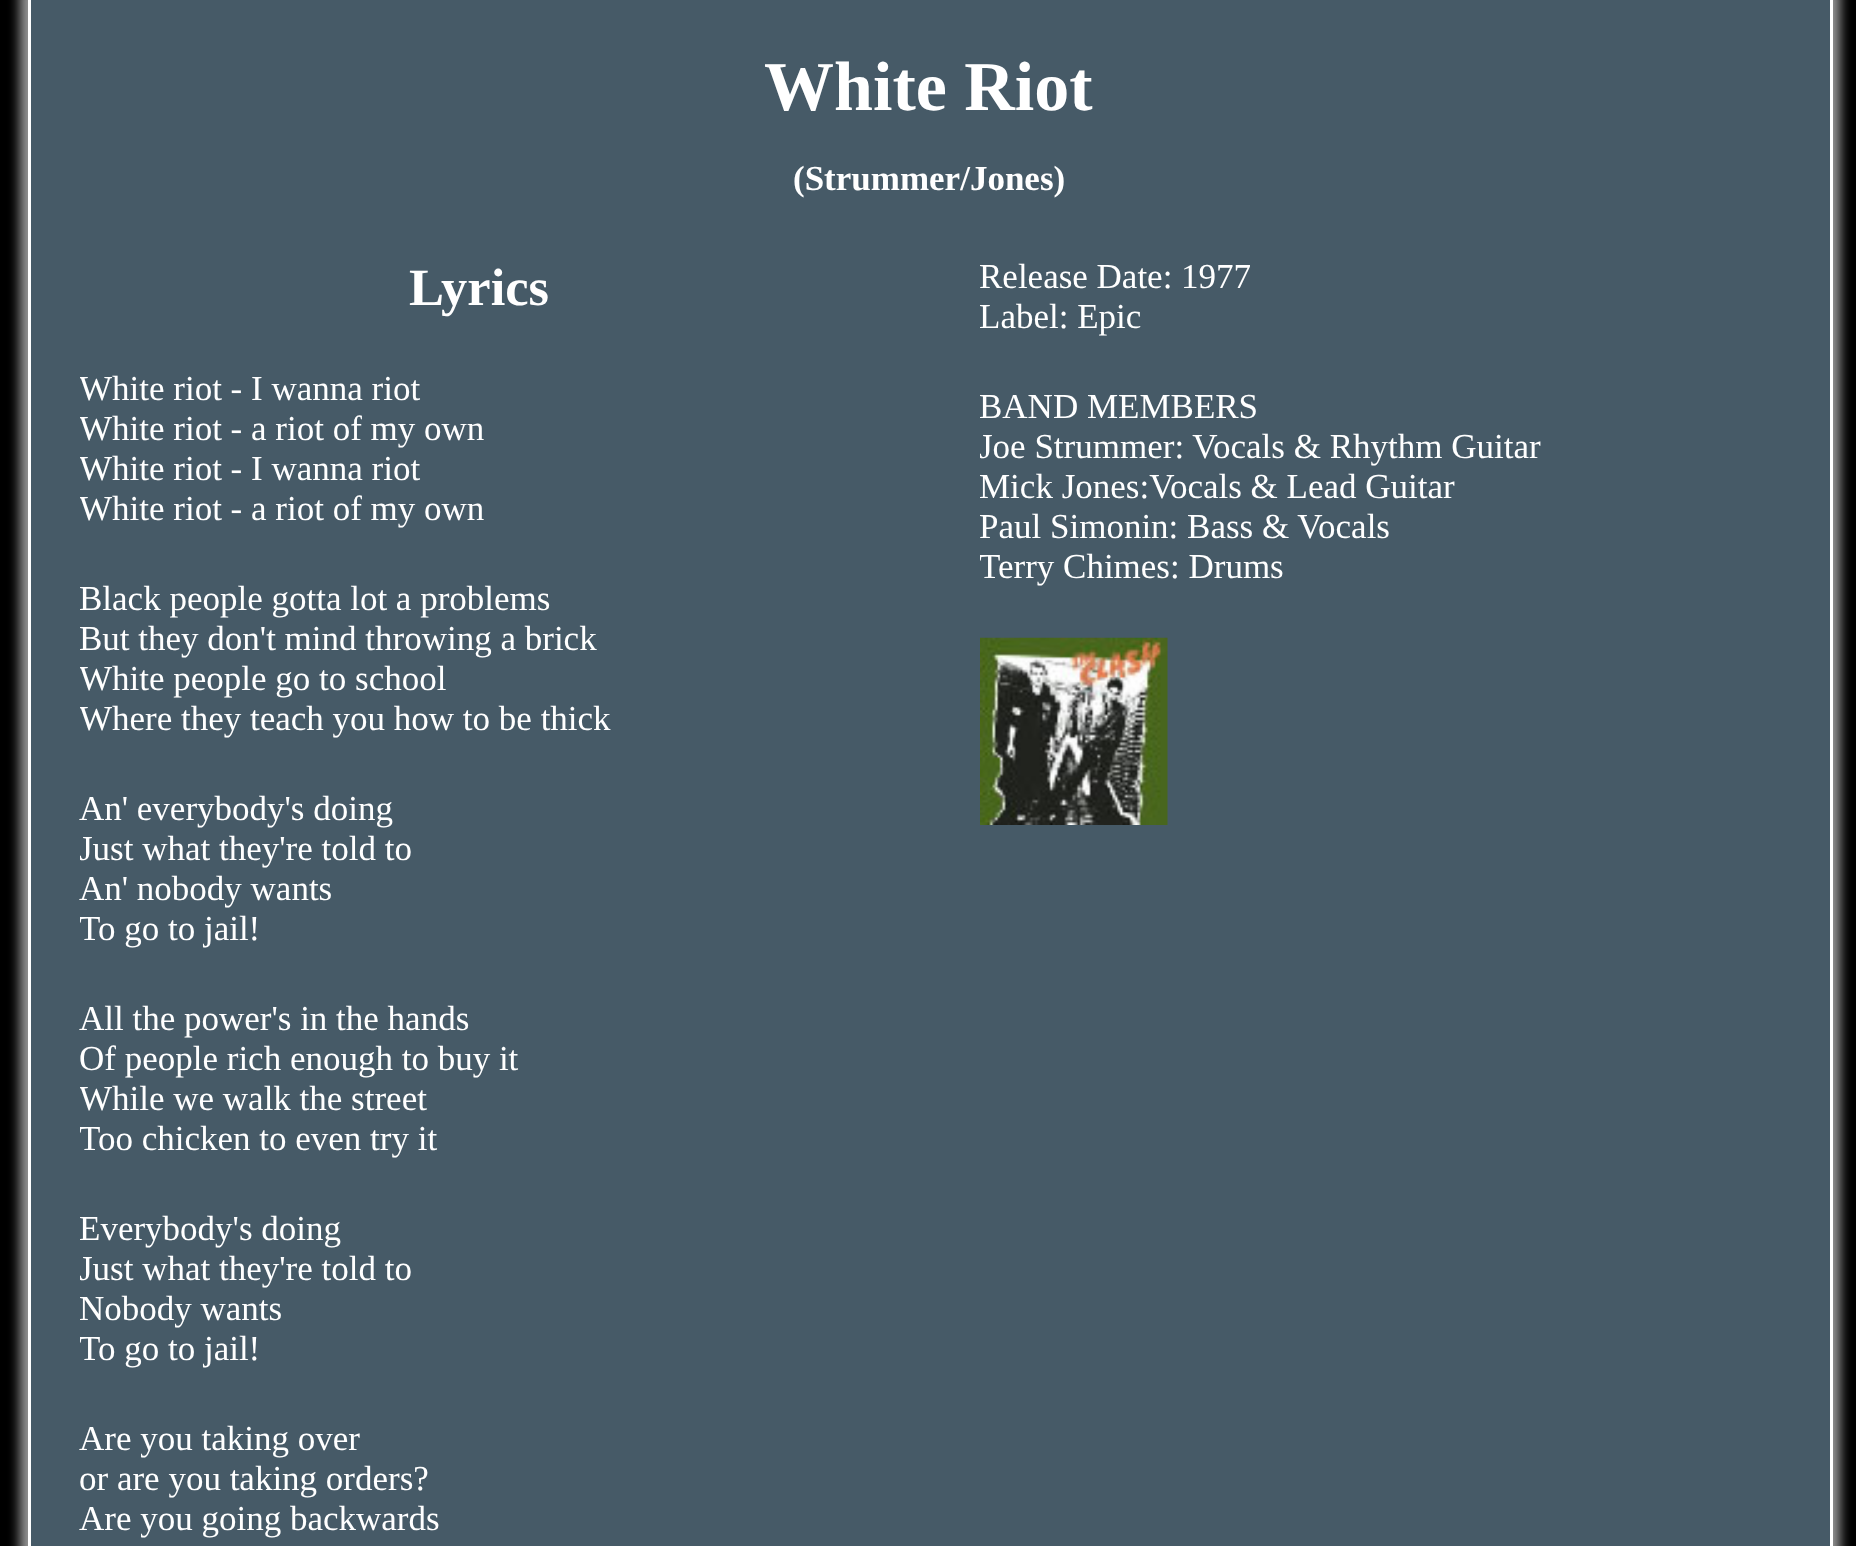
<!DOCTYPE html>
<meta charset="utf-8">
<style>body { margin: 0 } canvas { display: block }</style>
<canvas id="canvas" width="1856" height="1546"></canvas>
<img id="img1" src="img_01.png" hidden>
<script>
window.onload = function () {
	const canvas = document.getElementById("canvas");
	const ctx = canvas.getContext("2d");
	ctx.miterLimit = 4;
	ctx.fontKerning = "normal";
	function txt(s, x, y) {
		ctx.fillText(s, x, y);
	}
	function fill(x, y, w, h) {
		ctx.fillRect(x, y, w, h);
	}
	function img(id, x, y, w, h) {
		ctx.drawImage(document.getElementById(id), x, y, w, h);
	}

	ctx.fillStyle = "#000000";
	fill(0, 0, 1856, 1546);
	ctx.fillStyle = "rgba(255, 255, 255, 0.6)";
	ctx.filter = "blur(6px)";
	ctx.beginPath();
	ctx.rect(20, -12, 1820, 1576);
	ctx.fill();
	ctx.filter = "none";
	ctx.fillStyle = "#465A67";
	ctx.beginPath();
	ctx.rect(29.5, -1.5, 1802, 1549);
	ctx.fill();
	ctx.strokeStyle = "#FFFFFF";
	ctx.lineWidth = 3;
	ctx.stroke();
	img("img1", 980, 637, 188, 188);
	ctx.font = "bold 70px Liberation Serif";
	ctx.fillStyle = "#FFFFFF";
	txt("White Riot", 764, 110);
	ctx.font = "bold 35px Liberation Serif";
	txt("(Strummer/Jones)", 793, 190);
	ctx.font = "bold 52.5px Liberation Serif";
	txt("Lyrics", 409, 305);
	ctx.save();
	ctx.beginPath();
	ctx.rect(80, 370, 800, 160);
	ctx.clip();
	ctx.font = "35px Liberation Serif";
	txt("White riot - I wanna riot", 79, 400);
	txt("White riot - a riot of my own", 79, 440);
	txt("White riot - I wanna riot", 79, 480);
	txt("White riot - a riot of my own", 79, 520);
	ctx.restore();
	ctx.font = "35px Liberation Serif";
	txt("Black people gotta lot a problems", 79, 610);
	txt("But they don't mind throwing a brick", 79, 650);
	ctx.save();
	ctx.beginPath();
	ctx.rect(80, 580, 800, 160);
	ctx.clip();
	txt("White people go to school", 79, 690);
	txt("Where they teach you how to be thick", 79, 730);
	ctx.restore();
	txt("An' everybody's doing", 79, 820);
	ctx.save();
	ctx.beginPath();
	ctx.rect(80, 790, 800, 160);
	ctx.clip();
	txt("Just what they're told to", 79, 860);
	ctx.restore();
	txt("An' nobody wants", 79, 900);
	ctx.save();
	ctx.beginPath();
	ctx.rect(80, 790, 800, 160);
	ctx.clip();
	txt("To go to jail!", 79, 940);
	ctx.restore();
	txt("All the power's in the hands", 79, 1030);
	txt("Of people rich enough to buy it", 79, 1070);
	ctx.save();
	ctx.beginPath();
	ctx.rect(80, 1000, 800, 160);
	ctx.clip();
	txt("While we walk the street", 79, 1110);
	txt("Too chicken to even try it", 79, 1150);
	ctx.restore();
	txt("Everybody's doing", 79, 1240);
	ctx.save();
	ctx.beginPath();
	ctx.rect(80, 1210, 800, 160);
	ctx.clip();
	txt("Just what they're told to", 79, 1280);
	ctx.restore();
	txt("Nobody wants", 79, 1320);
	ctx.save();
	ctx.beginPath();
	ctx.rect(80, 1210, 800, 160);
	ctx.clip();
	txt("To go to jail!", 79, 1360);
	ctx.restore();
	txt("Are you taking over", 79, 1450);
	txt("or are you taking orders?", 79, 1490);
	txt("Are you going backwards", 79, 1530);
	txt("Release Date: 1977", 979, 288);
	txt("Label: Epic", 979, 328);
	txt("BAND MEMBERS", 979, 418);
	ctx.save();
	ctx.beginPath();
	ctx.rect(980, 388, 800, 200);
	ctx.clip();
	txt("Joe Strummer: Vocals & Rhythm Guitar", 979, 458);
	ctx.restore();
	txt("Mick Jones:Vocals & Lead Guitar", 979, 498);
	txt("Paul Simonin: Bass & Vocals", 979, 538);
	ctx.save();
	ctx.beginPath();
	ctx.rect(980, 388, 800, 200);
	ctx.clip();
	txt("Terry Chimes: Drums", 979, 578);
	ctx.restore();
};
</script>
